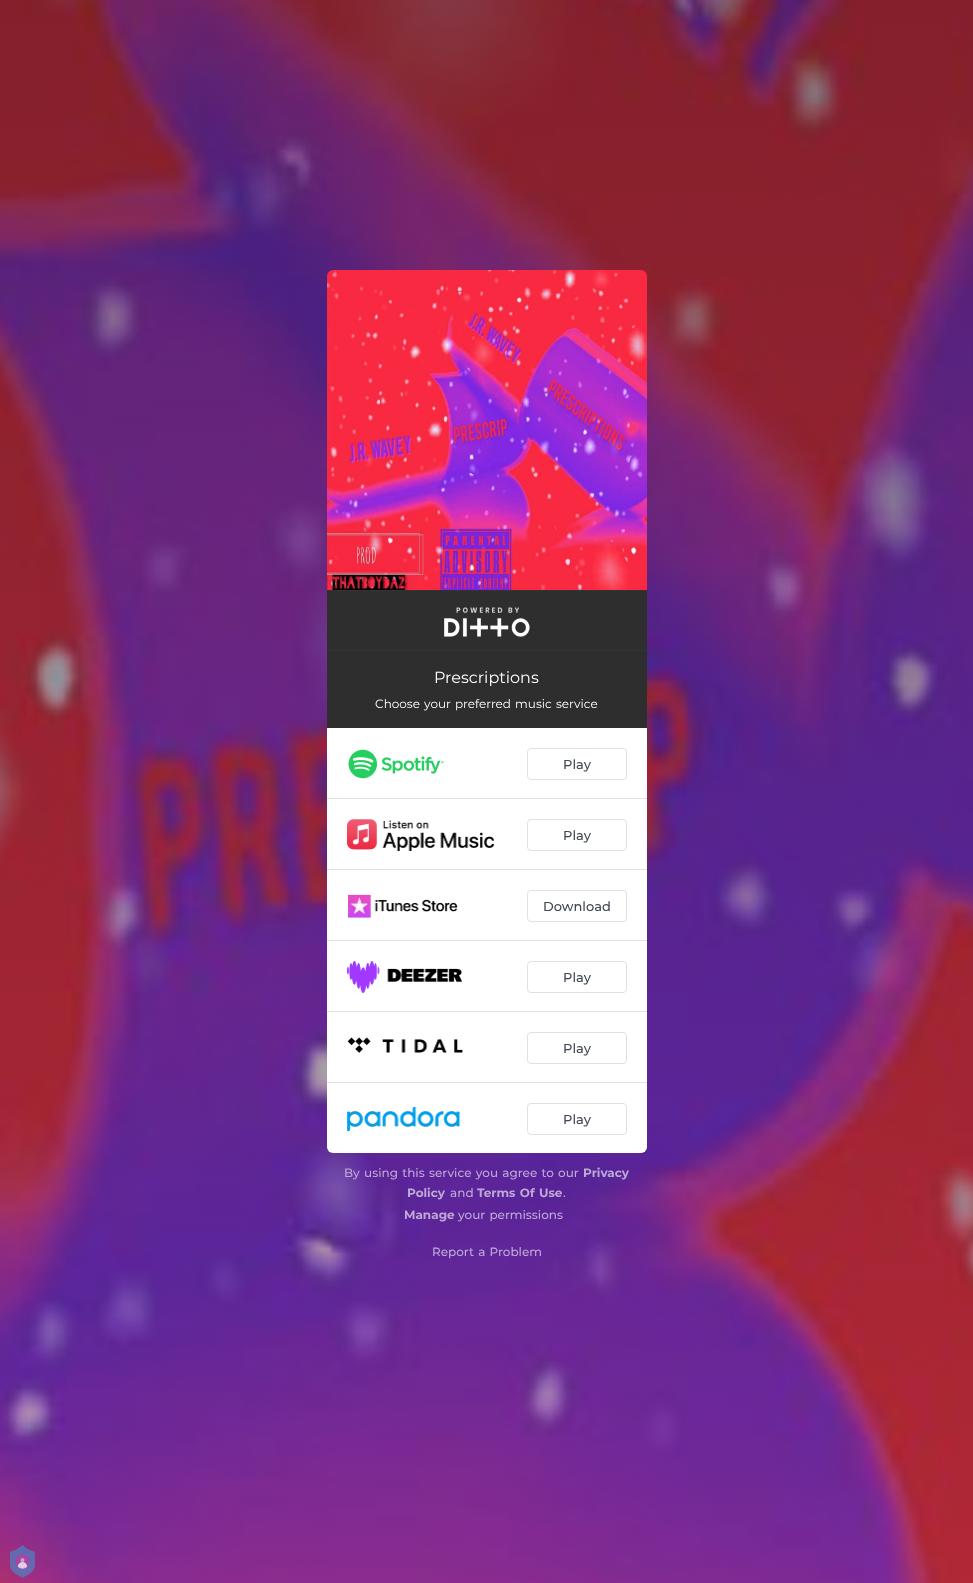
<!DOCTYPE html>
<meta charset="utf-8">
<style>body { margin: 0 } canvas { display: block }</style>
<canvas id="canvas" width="973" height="1583"></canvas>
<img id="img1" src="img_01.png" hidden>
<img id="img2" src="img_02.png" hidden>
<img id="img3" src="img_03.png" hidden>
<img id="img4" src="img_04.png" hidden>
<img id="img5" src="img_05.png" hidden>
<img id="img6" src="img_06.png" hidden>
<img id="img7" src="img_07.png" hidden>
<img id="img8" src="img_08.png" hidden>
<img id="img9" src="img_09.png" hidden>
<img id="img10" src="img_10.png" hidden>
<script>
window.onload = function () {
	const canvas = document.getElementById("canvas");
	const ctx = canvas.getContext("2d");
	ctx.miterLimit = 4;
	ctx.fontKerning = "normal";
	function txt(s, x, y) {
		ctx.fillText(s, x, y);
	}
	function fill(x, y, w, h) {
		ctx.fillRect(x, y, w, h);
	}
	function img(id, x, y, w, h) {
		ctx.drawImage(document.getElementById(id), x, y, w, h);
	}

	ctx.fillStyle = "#FFFFFF";
	fill(0, 0, 973, 1583);
	img("img1", 0, 0, 973, 1583);
	img("img2", 327, 270, 320, 320);
	ctx.fillStyle = "#2E2E2E";
	fill(327, 591, 320, 59);
	ctx.fillStyle = "#333333";
	fill(327, 590, 320, 1);
	fill(327, 650, 320, 1);
	img("img3", 444, 607, 86, 30);
	ctx.fillStyle = "#2E2E2E";
	fill(327, 651, 320, 77);
	ctx.fillStyle = "#FFFFFF";
	ctx.beginPath();
	ctx.roundRect(327, 728, 320, 425, [0, 0, 6, 6]);
	ctx.fill();
	ctx.fillStyle = "#E1E1E4";
	fill(327, 798, 320, 1);
	img("img4", 348, 749, 96, 30);
	ctx.beginPath();
	ctx.roundRect(527.5, 748.5, 99, 31, 3.5);
	ctx.strokeStyle = "#E1E1E4";
	ctx.stroke();
	fill(327, 869, 320, 1);
	img("img5", 347, 819, 147, 32);
	ctx.beginPath();
	ctx.roundRect(527.5, 819.5, 99, 31, 3.5);
	ctx.stroke();
	fill(327, 940, 320, 1);
	img("img6", 348, 894, 110, 24);
	ctx.beginPath();
	ctx.roundRect(527.5, 890.5, 99, 31, 3.5);
	ctx.stroke();
	fill(327, 1011, 320, 1);
	img("img7", 347, 961, 115, 32);
	ctx.beginPath();
	ctx.roundRect(527.5, 961.5, 99, 31, 3.5);
	ctx.stroke();
	fill(327, 1082, 320, 1);
	img("img8", 347, 1037, 116, 16);
	ctx.beginPath();
	ctx.roundRect(527.5, 1032.5, 99, 31, 3.5);
	ctx.stroke();
	img("img9", 347, 1106, 114, 26);
	ctx.beginPath();
	ctx.roundRect(527.5, 1103.5, 99, 31, 3.5);
	ctx.stroke();
	img("img10", 10, 1545, 25, 33);
	ctx.font = "16px Montserrat";
	ctx.fillStyle = "#FFFFFF";
	txt("Prescriptions", 434, 683);
	ctx.wordSpacing = "1px";
	ctx.font = "12px Montserrat";
	txt("Choose your preferred music service", 375, 708);
	ctx.wordSpacing = "0px";
	ctx.font = "500 13px Montserrat";
	ctx.fillStyle = "#414754";
	txt("Play", 563, 769);
	txt("Play", 563, 840);
	txt("Download", 543, 911);
	txt("Play", 563, 982);
	txt("Play", 563, 1053);
	txt("Play", 563, 1124);
	ctx.wordSpacing = "1px";
	ctx.font = "500 12px Montserrat";
	ctx.fillStyle = "#BEA8D6";
	txt("By using this service you agree to our", 344, 1177);
	ctx.wordSpacing = "0px";
	ctx.font = "bold 12px Montserrat";
	txt("Privacy", 583, 1177);
	txt("Policy", 407, 1197);
	ctx.font = "500 12px Montserrat";
	txt("and", 450, 1197);
	ctx.wordSpacing = "1px";
	ctx.font = "bold 12px Montserrat";
	txt("Terms Of Use", 477, 1197);
	ctx.wordSpacing = "0px";
	ctx.font = "500 12px Montserrat";
	txt(".", 563, 1197);
	ctx.font = "bold 12px Montserrat";
	txt("Manage", 404, 1219);
	ctx.wordSpacing = "1px";
	ctx.font = "500 12px Montserrat";
	txt("your permissions", 458, 1219);
	txt("Report a Problem", 432, 1256);
};
</script>
